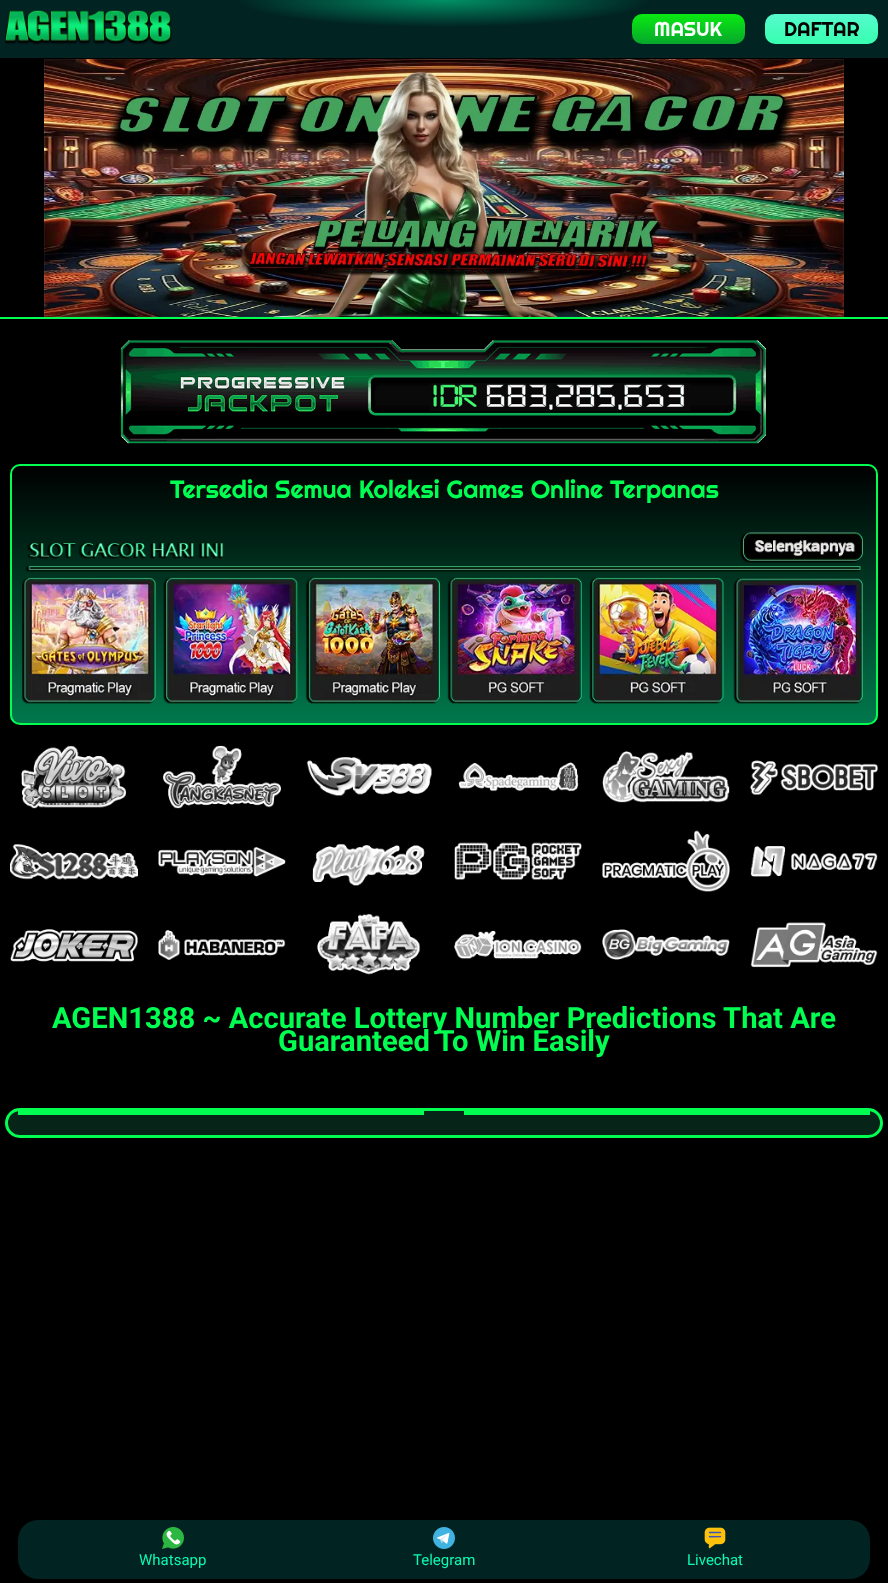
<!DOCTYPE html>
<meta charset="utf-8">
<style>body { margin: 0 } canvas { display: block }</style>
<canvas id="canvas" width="888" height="1583"></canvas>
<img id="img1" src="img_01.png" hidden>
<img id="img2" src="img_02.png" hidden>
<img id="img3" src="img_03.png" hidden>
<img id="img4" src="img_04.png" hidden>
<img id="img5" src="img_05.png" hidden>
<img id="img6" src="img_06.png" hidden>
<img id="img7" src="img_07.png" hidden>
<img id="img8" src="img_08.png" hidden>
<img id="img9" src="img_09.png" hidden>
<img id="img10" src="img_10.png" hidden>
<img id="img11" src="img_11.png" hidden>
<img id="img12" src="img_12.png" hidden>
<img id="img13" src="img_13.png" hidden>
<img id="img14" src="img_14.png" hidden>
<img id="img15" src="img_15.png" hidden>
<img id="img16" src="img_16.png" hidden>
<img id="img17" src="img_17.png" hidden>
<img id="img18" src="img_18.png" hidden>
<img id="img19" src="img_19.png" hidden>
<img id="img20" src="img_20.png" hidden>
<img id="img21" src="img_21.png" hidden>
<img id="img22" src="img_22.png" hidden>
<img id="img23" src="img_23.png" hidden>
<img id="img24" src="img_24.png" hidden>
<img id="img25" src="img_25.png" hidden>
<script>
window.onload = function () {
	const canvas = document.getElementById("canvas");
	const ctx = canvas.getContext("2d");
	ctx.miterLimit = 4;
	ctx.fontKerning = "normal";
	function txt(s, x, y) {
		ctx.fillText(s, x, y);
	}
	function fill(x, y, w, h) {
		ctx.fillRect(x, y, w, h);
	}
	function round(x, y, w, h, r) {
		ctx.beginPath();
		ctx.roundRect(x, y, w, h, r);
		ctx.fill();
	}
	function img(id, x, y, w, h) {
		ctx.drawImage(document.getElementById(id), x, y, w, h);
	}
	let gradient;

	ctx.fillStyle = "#000000";
	fill(0, 0, 888, 1583);
	gradient = ctx.createRadialGradient(444, 0, 0, 444, 0, 628);
	gradient.addColorStop(0, "#019166");
	gradient.addColorStop(0.33, "#012322");
	ctx.fillStyle = gradient;
	ctx.beginPath();
	ctx.rect(0, 0, 888, 58);
	ctx.save();
	ctx.clip();
	ctx.scale(1, 82 / 628);
	ctx.fillRect(0, 0, 888, 12124);
	ctx.restore();
	img("img1", 5, 10, 167, 35);
	gradient = ctx.createLinearGradient(689, 14, 689, 44);
	gradient.addColorStop(0, "#09EB11");
	gradient.addColorStop(1, "#07A72C");
	ctx.fillStyle = gradient;
	round(632, 14, 113, 30, 10);
	gradient = ctx.createLinearGradient(822, 14, 822, 44);
	gradient.addColorStop(0, "#56FACE");
	gradient.addColorStop(1, "#37FFAF");
	ctx.fillStyle = gradient;
	round(765, 14, 113, 30, 10);
	ctx.fillStyle = "#00FF51";
	fill(0, 317, 888, 2);
	img("img2", 44, 59, 800, 258);
	img("img3", 120, 340, 646, 104);
	ctx.save();
	ctx.beginPath();
	ctx.roundRect(10, 464, 868, 261, 10);
	ctx.clip();
	gradient = ctx.createLinearGradient(444, 466, 444, 723);
	gradient.addColorStop(0, "#000000");
	gradient.addColorStop(1, "#00784C");
	ctx.fillStyle = gradient;
	fill(10, 466, 868, 257);
	ctx.restore();
	ctx.beginPath();
	ctx.roundRect(11, 465, 866, 259, 9);
	ctx.strokeStyle = "#00FF51";
	ctx.lineWidth = 2;
	ctx.stroke();
	img("img4", 22, 532, 841, 172);
	img("img5", 21, 745, 105, 64);
	img("img6", 10, 844, 128, 36);
	img("img7", 10, 929, 128, 33);
	img("img8", 163, 745, 118, 64);
	img("img9", 158, 847, 128, 30);
	img("img10", 158, 930, 128, 30);
	img("img11", 306, 757, 126, 39);
	img("img12", 312, 843, 113, 43);
	img("img13", 317, 913, 104, 62);
	img("img14", 458, 762, 121, 30);
	img("img15", 454, 842, 128, 38);
	img("img16", 454, 930, 128, 29);
	img("img17", 602, 751, 128, 52);
	img("img18", 602, 830, 128, 62);
	img("img19", 602, 929, 128, 31);
	img("img20", 750, 760, 128, 35);
	img("img21", 750, 846, 128, 31);
	img("img22", 750, 922, 128, 46);
	ctx.fillStyle = "#072418";
	ctx.beginPath();
	ctx.roundRect(6.5, 1109.5, 875, 27, 13.5);
	ctx.fill();
	ctx.lineWidth = 3;
	ctx.stroke();
	ctx.fillStyle = "#00FF51";
	fill(18, 1111, 406, 4);
	fill(464, 1111, 406, 4);
	ctx.fillStyle = "#012322";
	round(18, 1520, 852, 59, 20);
	img("img23", 162, 1527, 22, 22);
	img("img24", 433, 1527, 22, 22);
	img("img25", 704, 1527, 22, 22);
	ctx.font = "20px Righteous";
	ctx.fillStyle = "#FFFFFF";
	txt("MASUK", 654, 36);
	ctx.fillStyle = "#000000";
	txt("DAFTAR", 784, 36);
	ctx.font = "25px Righteous";
	ctx.fillStyle = "#00FF51";
	txt("Tersedia Semua Koleksi Games Online Terpanas", 170, 498);
	ctx.font = "bold 29.2px Roboto";
	txt("AGEN1388 ~ Accurate Lottery Number Predictions That Are", 52, 1028);
	txt("Guaranteed To Win Easily", 278, 1051);
	ctx.font = "15px Roboto";
	ctx.fillStyle = "#0CFAAF";
	txt("Whatsapp", 139, 1565);
	txt("Telegram", 413, 1565);
	txt("Livechat", 687, 1565);
};
</script>
